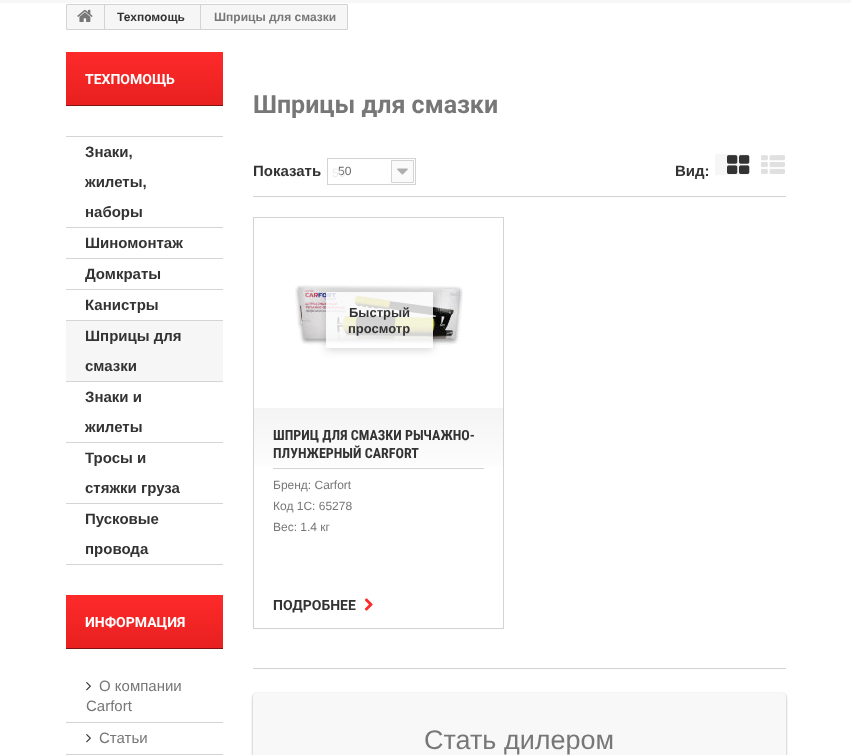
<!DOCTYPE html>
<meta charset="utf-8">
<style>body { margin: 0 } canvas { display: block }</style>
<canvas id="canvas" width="851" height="755"></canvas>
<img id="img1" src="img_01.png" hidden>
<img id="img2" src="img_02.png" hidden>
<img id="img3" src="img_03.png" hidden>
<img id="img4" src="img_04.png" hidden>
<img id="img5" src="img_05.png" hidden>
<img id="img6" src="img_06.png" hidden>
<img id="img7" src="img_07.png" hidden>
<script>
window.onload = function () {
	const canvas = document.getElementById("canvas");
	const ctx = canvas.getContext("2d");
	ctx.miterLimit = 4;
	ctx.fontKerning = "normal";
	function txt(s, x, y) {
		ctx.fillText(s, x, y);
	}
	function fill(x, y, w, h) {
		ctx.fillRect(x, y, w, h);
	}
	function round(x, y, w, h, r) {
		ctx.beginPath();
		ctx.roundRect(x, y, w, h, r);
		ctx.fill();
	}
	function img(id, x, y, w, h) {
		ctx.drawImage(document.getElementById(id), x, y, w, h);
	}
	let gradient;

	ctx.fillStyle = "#FFFFFF";
	fill(0, 0, 851, 755);
	ctx.fillStyle = "#F7F7F7";
	fill(0, 0, 851, 3);
	ctx.fillStyle = "#F6F6F6";
	ctx.beginPath();
	ctx.rect(66.5, 4.5, 281, 25);
	ctx.fill();
	ctx.strokeStyle = "#D3D3D3";
	ctx.stroke();
	ctx.fillStyle = "#D3D3D3";
	fill(104, 5, 1, 24);
	img("img1", 77, 9, 16, 13);
	fill(200, 5, 1, 24);
	gradient = ctx.createLinearGradient(145, 52, 145, 105);
	gradient.addColorStop(0, "#FE2A2A");
	gradient.addColorStop(1, "#E82020");
	ctx.fillStyle = gradient;
	fill(66, 52, 157, 53);
	ctx.fillStyle = "#801212";
	fill(66, 105, 157, 1);
	ctx.fillStyle = "#D6D4D4";
	fill(66, 136, 157, 1);
	fill(66, 227, 157, 1);
	fill(66, 258, 157, 1);
	fill(66, 289, 157, 1);
	fill(66, 320, 157, 1);
	ctx.fillStyle = "#F6F6F6";
	fill(66, 321, 157, 60);
	ctx.fillStyle = "#D6D4D4";
	fill(66, 381, 157, 1);
	fill(66, 442, 157, 1);
	fill(66, 503, 157, 1);
	fill(66, 564, 157, 1);
	gradient = ctx.createLinearGradient(145, 595, 145, 648);
	gradient.addColorStop(0, "#FE2A2A");
	gradient.addColorStop(1, "#E82020");
	ctx.fillStyle = gradient;
	fill(66, 595, 157, 53);
	ctx.fillStyle = "#801212";
	fill(66, 648, 157, 1);
	img("img2", 86, 682, 5, 9);
	ctx.fillStyle = "#D3D3D3";
	fill(66, 722, 157, 1);
	img("img2", 86, 734, 5, 9);
	fill(66, 754, 157, 1);
	fill(253, 196, 533, 1);
	ctx.strokeRect(327.5, 158.5, 88, 26);
	ctx.fillStyle = "#FAFAFA";
	ctx.beginPath();
	ctx.rect(391.5, 160.5, 22, 22);
	ctx.fill();
	ctx.stroke();
	img("img3", 397, 168, 11, 7);
	ctx.fillStyle = "#F6F6F6";
	fill(715, 154, 34, 21);
	img("img4", 727, 155, 23, 19);
	img("img5", 761, 155, 24, 19);
	ctx.strokeRect(253.5, 217.5, 250, 411);
	img("img6", 295, 285, 168, 61);
	ctx.save();
	ctx.beginPath();
	ctx.moveTo(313, 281);
	ctx.lineTo(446, 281);
	ctx.lineTo(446, 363);
	ctx.lineTo(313, 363);
	ctx.closePath();
	ctx.moveTo(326, 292);
	ctx.lineTo(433, 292);
	ctx.lineTo(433, 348);
	ctx.lineTo(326, 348);
	ctx.closePath();
	ctx.clip("evenodd");
	ctx.fillStyle = "rgba(0, 0, 0, 0.16)";
	ctx.filter = "blur(4px)";
	ctx.beginPath();
	ctx.rect(326, 294, 107, 56);
	ctx.fill();
	ctx.filter = "none";
	ctx.restore();
	ctx.fillStyle = "rgba(255, 255, 255, 0.82)";
	fill(326, 292, 107, 54);
	gradient = ctx.createLinearGradient(379, 408, 379, 628);
	gradient.addColorStop(0, "#F4F4F4");
	gradient.addColorStop(0.34, "#FFFFFF");
	ctx.fillStyle = gradient;
	fill(254, 408, 249, 58);
	ctx.fillStyle = "#D3D3D3";
	fill(273, 468, 211, 1);
	img("img7", 365, 598, 8, 13);
	fill(253, 668, 533, 1);
	ctx.fillStyle = "rgba(0, 0, 0, 0.24)";
	ctx.filter = "blur(1px)";
	ctx.beginPath();
	ctx.roundRect(253, 694, 533, 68, 4);
	ctx.fill();
	ctx.filter = "none";
	ctx.fillStyle = "rgba(0, 0, 0, 0.12)";
	ctx.filter = "blur(1.5px)";
	ctx.beginPath();
	ctx.roundRect(253, 694, 533, 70, 4);
	ctx.fill();
	ctx.filter = "none";
	ctx.fillStyle = "#F8F8F8";
	round(253, 693, 533, 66, 4);
	ctx.font = "bold 12px Liberation Sans";
	ctx.fillStyle = "#333333";
	txt("Техпомощь", 117, 21);
	ctx.fillStyle = "#777777";
	txt("Шприцы для смазки", 214, 21);
	ctx.font = "bold 14px Roboto";
	ctx.fillStyle = "#FFFFFF";
	txt("ТЕХПОМОЩЬ", 85, 84);
	ctx.font = "bold 15px Liberation Sans";
	ctx.fillStyle = "#333333";
	txt("Знаки,", 85, 157);
	txt("жилеты,", 85, 187);
	txt("наборы", 85, 217);
	txt("Шиномонтаж", 85, 248);
	txt("Домкраты", 85, 279);
	txt("Канистры", 85, 310);
	txt("Шприцы для", 85, 341);
	txt("смазки", 85, 371);
	txt("Знаки и", 85, 402);
	txt("жилеты", 85, 432);
	txt("Тросы и", 85, 463);
	txt("стяжки груза", 85, 493);
	txt("Пусковые", 85, 524);
	txt("провода", 85, 554);
	ctx.font = "bold 14px Roboto";
	ctx.fillStyle = "#FFFFFF";
	txt("ИНФОРМАЦИЯ", 85, 627);
	ctx.font = "15px Liberation Sans";
	ctx.fillStyle = "#777777";
	txt("О компании", 99, 691);
	txt("Carfort", 86, 711);
	txt("Статьи", 99, 743);
	ctx.font = "bold 25px Roboto";
	txt("Шприцы для смазки", 253, 113);
	ctx.font = "bold 15px Liberation Sans";
	ctx.fillStyle = "#333333";
	txt("Показать", 253, 176);
	ctx.font = "12px Liberation Sans";
	ctx.fillStyle = "#666666";
	txt("50", 338, 175);
	ctx.fillStyle = "#ECECEC";
	txt("50", 332, 177);
	ctx.font = "bold 15px Liberation Sans";
	ctx.fillStyle = "#333333";
	txt("Вид:", 675, 176);
	ctx.font = "bold 13px Liberation Sans";
	txt("Быстрый", 349, 317);
	txt("просмотр", 348, 333);
	ctx.font = "bold 14px Roboto Condensed";
	txt("ШПРИЦ ДЛЯ СМАЗКИ РЫЧАЖНО-", 273, 440);
	txt("ПЛУНЖЕРНЫЙ CARFORT", 273, 458);
	ctx.font = "12px Liberation Sans";
	ctx.fillStyle = "#777777";
	txt("Бренд: Carfort", 273, 489);
	txt("Код 1С: 65278", 273, 510);
	txt("Вес: 1.4 кг", 273, 531);
	ctx.font = "bold 14px Roboto";
	ctx.fillStyle = "#333333";
	txt("ПОДРОБНЕЕ", 273, 610);
	ctx.font = "27px Liberation Sans";
	ctx.fillStyle = "#777777";
	txt("Стать дилером", 424, 749);
};
</script>
